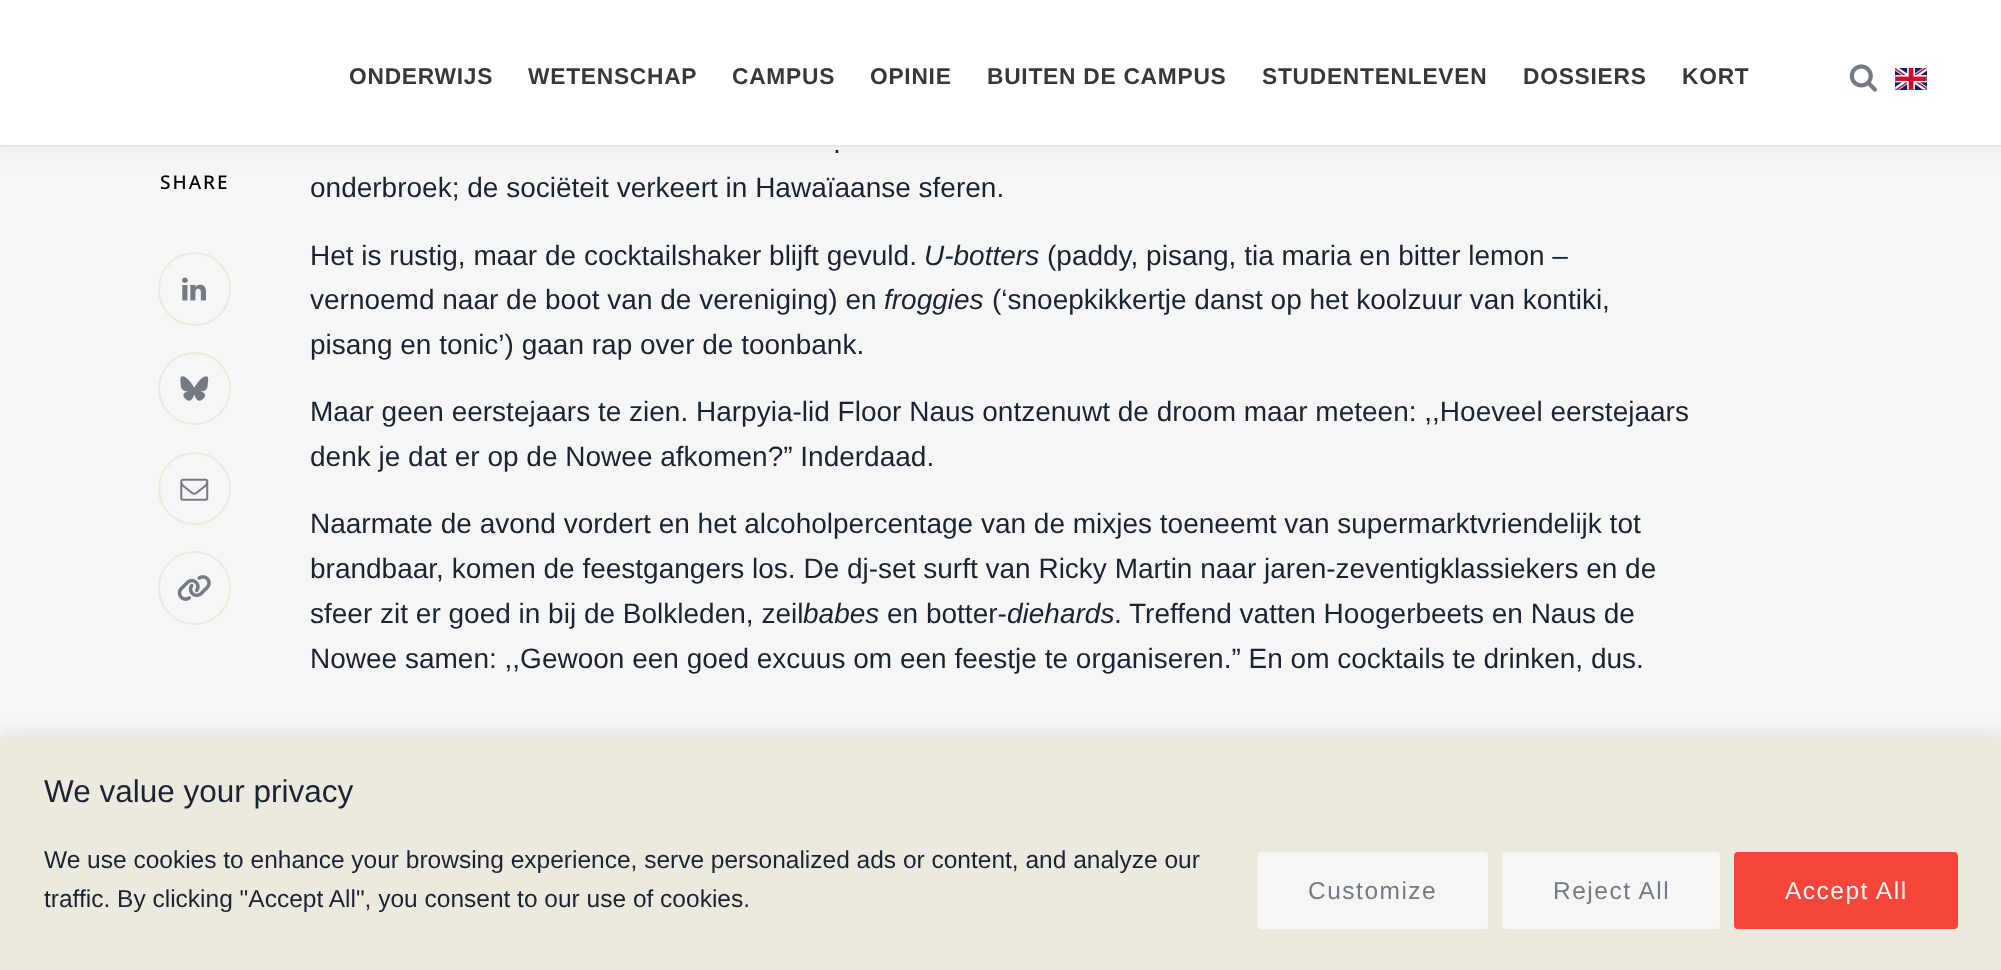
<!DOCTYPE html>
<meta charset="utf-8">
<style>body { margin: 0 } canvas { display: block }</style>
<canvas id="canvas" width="2001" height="970"></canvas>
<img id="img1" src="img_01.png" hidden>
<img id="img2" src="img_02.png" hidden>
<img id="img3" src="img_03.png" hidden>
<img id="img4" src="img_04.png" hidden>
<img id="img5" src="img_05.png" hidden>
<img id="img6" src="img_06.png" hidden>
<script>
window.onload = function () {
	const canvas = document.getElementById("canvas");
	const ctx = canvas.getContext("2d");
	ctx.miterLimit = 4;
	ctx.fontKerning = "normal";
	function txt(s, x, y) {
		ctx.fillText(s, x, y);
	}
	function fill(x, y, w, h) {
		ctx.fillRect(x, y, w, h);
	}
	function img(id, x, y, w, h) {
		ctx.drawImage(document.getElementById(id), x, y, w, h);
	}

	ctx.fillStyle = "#F6F6F6";
	fill(0, 0, 2001, 970);
	ctx.fillStyle = "rgba(0, 0, 0, 0.05)";
	ctx.filter = "blur(17.5px)";
	ctx.beginPath();
	ctx.rect(0, 0, 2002, 147);
	ctx.fill();
	ctx.filter = "none";
	ctx.fillStyle = "#FFFFFF";
	fill(0, 0, 2001, 145);
	ctx.fillStyle = "#E7E7E7";
	fill(0, 145, 2001, 2);
	img("img1", 1849, 64, 28, 28);
	img("img2", 1895, 67, 32, 23);
	ctx.beginPath();
	ctx.roundRect(159, 253, 71, 72, 35.5);
	ctx.strokeStyle = "#ECEADE";
	ctx.lineWidth = 2;
	ctx.stroke();
	img("img3", 182, 277, 24, 24);
	ctx.beginPath();
	ctx.arc(194.5, 388.5, 35.5, 0, Math.PI * 2);
	ctx.stroke();
	img("img4", 180, 376, 29, 25);
	ctx.beginPath();
	ctx.arc(194.5, 488.5, 35.5, 0, Math.PI * 2);
	ctx.stroke();
	img("img5", 180, 478, 29, 23);
	ctx.beginPath();
	ctx.roundRect(159, 552, 71, 72, 35.5);
	ctx.stroke();
	img("img6", 177, 575, 34, 26);
	ctx.fillStyle = "rgba(172, 171, 171, 0.3)";
	ctx.filter = "blur(9px)";
	ctx.beginPath();
	ctx.rect(0, 735, 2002, 235);
	ctx.fill();
	ctx.filter = "none";
	ctx.fillStyle = "#ECEADE";
	fill(0, 737, 2001, 233);
	ctx.fillStyle = "#F6F6F6";
	ctx.beginPath();
	ctx.roundRect(1260, 854, 226, 73, 2);
	ctx.fill();
	ctx.strokeStyle = "#F6F6F6";
	ctx.lineWidth = 4;
	ctx.stroke();
	ctx.beginPath();
	ctx.roundRect(1504, 854, 214, 73, 2);
	ctx.fill();
	ctx.stroke();
	ctx.fillStyle = "#F5463C";
	ctx.beginPath();
	ctx.roundRect(1736, 854, 220, 73, 2);
	ctx.fill();
	ctx.strokeStyle = "#F5463C";
	ctx.stroke();
	ctx.letterSpacing = "0.75px";
	ctx.font = "bold 22.75px Liberation Sans";
	ctx.fillStyle = "#383838";
	txt("ONDERWIJS", 349, 84);
	txt("WETENSCHAP", 528, 84);
	txt("CAMPUS", 732, 84);
	txt("OPINIE", 870, 84);
	txt("BUITEN DE CAMPUS", 987, 84);
	txt("STUDENTENLEVEN", 1262, 84);
	txt("DOSSIERS", 1523, 84);
	txt("KORT", 1682, 84);
	ctx.letterSpacing = "2px";
	ctx.font = "500 19px Noto Sans";
	ctx.fillStyle = "#000000";
	txt("SHARE", 160, 189);
	ctx.letterSpacing = "0px";
	ctx.font = "28px Liberation Sans";
	ctx.fillStyle = "#192332";
	txt(".", 833, 153);
	txt("onderbroek; de sociëteit verkeert in Hawaïaanse sferen.", 310, 197);
	txt("Het is rustig, maar de cocktailshaker blijft gevuld.", 310, 265);
	ctx.font = "italic 28px Liberation Sans";
	txt("U-botters", 924, 265);
	ctx.font = "28px Liberation Sans";
	txt("(paddy, pisang, tia maria en bitter lemon –", 1047, 265);
	txt("vernoemd naar de boot van de vereniging) en", 310, 309);
	ctx.font = "italic 28px Liberation Sans";
	txt("froggies", 884, 309);
	ctx.font = "28px Liberation Sans";
	txt("(‘snoepkikkertje danst op het koolzuur van kontiki,", 992, 309);
	txt("pisang en tonic’) gaan rap over de toonbank.", 310, 354);
	txt("Maar geen eerstejaars te zien. Harpyia-lid Floor Naus ontzenuwt de droom maar meteen: ,,Hoeveel eerstejaars", 310, 421);
	txt("denk je dat er op de Nowee afkomen?” Inderdaad.", 310, 466);
	txt("Naarmate de avond vordert en het alcoholpercentage van de mixjes toeneemt van supermarktvriendelijk tot", 310, 533);
	txt("brandbaar, komen de feestgangers los. De dj-set surft van Ricky Martin naar jaren-zeventigklassiekers en de", 310, 578);
	txt("sfeer zit er goed in bij de Bolkleden, zeil", 310, 623);
	ctx.font = "italic 28px Liberation Sans";
	txt("babes", 803, 623);
	ctx.font = "28px Liberation Sans";
	txt("en botter-", 887, 623);
	ctx.font = "italic 28px Liberation Sans";
	txt("diehards", 1007, 623);
	ctx.font = "28px Liberation Sans";
	txt(". Treffend vatten Hoogerbeets en Naus de", 1114, 623);
	txt("Nowee samen: ,,Gewoon een goed excuus om een feestje te organiseren.” En om cocktails te drinken, dus.", 310, 668);
	ctx.font = "31.5px Liberation Sans";
	txt("We value your privacy", 44, 802);
	ctx.font = "24.5px Liberation Sans";
	txt("We use cookies to enhance your browsing experience, serve personalized ads or content, and analyze our", 44, 868);
	txt("traffic. By clicking \"Accept All\", you consent to our use of cookies.", 44, 907);
	ctx.letterSpacing = "1.5px";
	ctx.fillStyle = "#757B84";
	txt("Customize", 1308, 899);
	txt("Reject All", 1553, 899);
	ctx.fillStyle = "#F6F6F6";
	txt("Accept All", 1785, 899);
};
</script>
